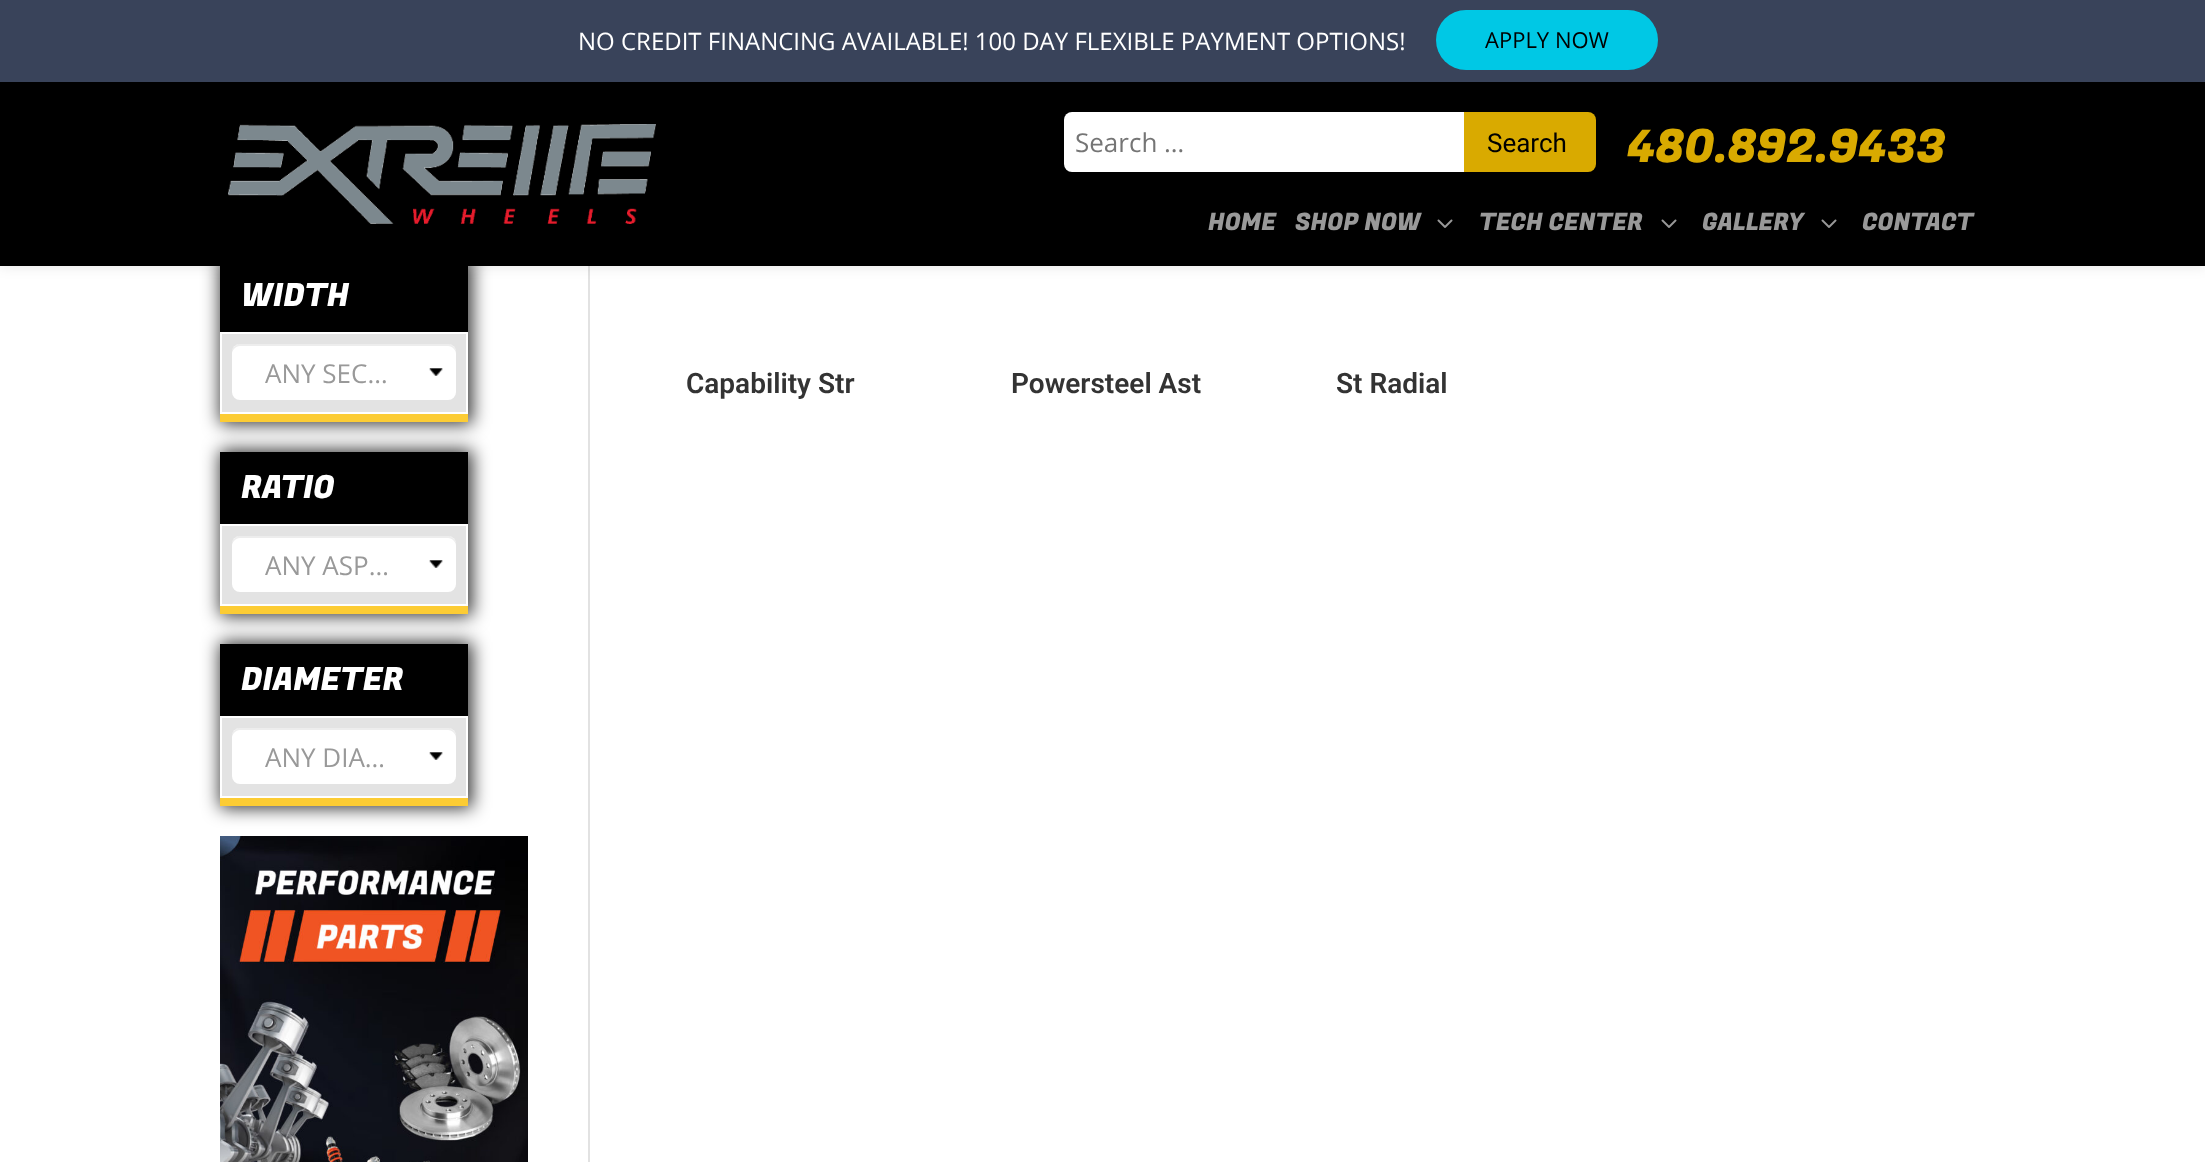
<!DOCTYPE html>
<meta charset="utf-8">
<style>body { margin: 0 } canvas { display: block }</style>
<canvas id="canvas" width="2205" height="1162"></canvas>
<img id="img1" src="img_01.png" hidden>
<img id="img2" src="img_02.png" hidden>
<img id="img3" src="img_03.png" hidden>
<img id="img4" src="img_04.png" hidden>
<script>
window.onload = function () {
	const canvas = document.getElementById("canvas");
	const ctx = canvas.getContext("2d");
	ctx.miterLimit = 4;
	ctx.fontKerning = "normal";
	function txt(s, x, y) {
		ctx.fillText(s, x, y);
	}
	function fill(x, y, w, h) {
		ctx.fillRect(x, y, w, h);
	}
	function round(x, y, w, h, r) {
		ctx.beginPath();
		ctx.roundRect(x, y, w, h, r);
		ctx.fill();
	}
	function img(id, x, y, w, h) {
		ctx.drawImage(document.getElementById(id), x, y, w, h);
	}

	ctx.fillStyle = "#FFFFFF";
	fill(0, 0, 2205, 1162);
	ctx.fillStyle = "#E2E2E2";
	fill(588, 266, 2, 896);
	ctx.fillStyle = "rgba(0, 0, 0, 0.82)";
	ctx.filter = "blur(9px)";
	ctx.beginPath();
	ctx.rect(220, 258, 252, 166);
	ctx.fill();
	ctx.filter = "none";
	ctx.fillStyle = "#000000";
	fill(220, 266, 248, 66);
	ctx.fillStyle = "rgba(0, 0, 0, 0.1)";
	ctx.filter = "blur(7px)";
	ctx.beginPath();
	ctx.rect(0, 0, 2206, 266);
	ctx.fill();
	ctx.filter = "none";
	ctx.fillStyle = "#000000";
	fill(0, 82, 2205, 184);
	ctx.fillStyle = "#39435A";
	fill(0, 0, 2205, 82);
	ctx.fillStyle = "#00C8E5";
	round(1436, 10, 222, 60, 30);
	img("img1", 228, 124, 428, 100);
	ctx.fillStyle = "#FFFFFF";
	ctx.beginPath();
	ctx.roundRect(1064, 112, 400, 60, [8, 0, 0, 8]);
	ctx.fill();
	ctx.fillStyle = "#D9AA00";
	ctx.beginPath();
	ctx.roundRect(1464, 112, 132, 60, [0, 8, 8, 0]);
	ctx.fill();
	img("img2", 1437, 219, 16, 9);
	img("img2", 1661, 219, 16, 9);
	img("img2", 1821, 219, 16, 9);
	ctx.fillStyle = "#FCCC34";
	fill(220, 414, 248, 8);
	ctx.fillStyle = "#E3E3E3";
	ctx.beginPath();
	ctx.rect(221, 333, 246, 80);
	ctx.fill();
	ctx.strokeStyle = "#FFFFFF";
	ctx.lineWidth = 2;
	ctx.stroke();
	ctx.fillStyle = "#FFFFFF";
	round(232, 344, 224, 56, 8);
	img("img3", 429, 368, 14, 8);
	ctx.fillStyle = "rgba(0, 0, 0, 0.07)";
	ctx.beginPath();
	ctx.moveTo(240, 346);
	ctx.lineTo(448, 346);
	ctx.bezierCurveTo(452, 346, 456, 350, 456, 354);
	ctx.lineTo(456, 352);
	ctx.bezierCurveTo(456, 348, 452, 344, 448, 344);
	ctx.lineTo(240, 344);
	ctx.bezierCurveTo(236, 344, 232, 348, 232, 352);
	ctx.lineTo(232, 354);
	ctx.bezierCurveTo(232, 350, 236, 346, 240, 346);
	ctx.closePath();
	ctx.fill();
	ctx.fillStyle = "rgba(0, 0, 0, 0.82)";
	ctx.filter = "blur(9px)";
	ctx.beginPath();
	ctx.rect(220, 450, 252, 166);
	ctx.fill();
	ctx.filter = "none";
	ctx.fillStyle = "#FCCC34";
	fill(220, 606, 248, 8);
	ctx.fillStyle = "#000000";
	fill(220, 452, 248, 72);
	ctx.fillStyle = "#E3E3E3";
	ctx.beginPath();
	ctx.rect(221, 525, 246, 80);
	ctx.fill();
	ctx.stroke();
	ctx.fillStyle = "#FFFFFF";
	round(232, 536, 224, 56, 8);
	img("img3", 429, 560, 14, 8);
	ctx.fillStyle = "rgba(0, 0, 0, 0.07)";
	ctx.beginPath();
	ctx.moveTo(240, 538);
	ctx.lineTo(448, 538);
	ctx.bezierCurveTo(452, 538, 456, 542, 456, 546);
	ctx.lineTo(456, 544);
	ctx.bezierCurveTo(456, 540, 452, 536, 448, 536);
	ctx.lineTo(240, 536);
	ctx.bezierCurveTo(236, 536, 232, 540, 232, 544);
	ctx.lineTo(232, 546);
	ctx.bezierCurveTo(232, 542, 236, 538, 240, 538);
	ctx.closePath();
	ctx.fill();
	ctx.fillStyle = "rgba(0, 0, 0, 0.82)";
	ctx.filter = "blur(9px)";
	ctx.beginPath();
	ctx.rect(220, 642, 252, 166);
	ctx.fill();
	ctx.filter = "none";
	ctx.fillStyle = "#FCCC34";
	fill(220, 798, 248, 8);
	ctx.fillStyle = "#000000";
	fill(220, 644, 248, 72);
	ctx.fillStyle = "#E3E3E3";
	ctx.beginPath();
	ctx.rect(221, 717, 246, 80);
	ctx.fill();
	ctx.stroke();
	ctx.fillStyle = "#FFFFFF";
	round(232, 728, 224, 56, 8);
	img("img3", 429, 752, 14, 8);
	ctx.fillStyle = "rgba(0, 0, 0, 0.07)";
	ctx.beginPath();
	ctx.moveTo(240, 730);
	ctx.lineTo(448, 730);
	ctx.bezierCurveTo(452, 730, 456, 734, 456, 738);
	ctx.lineTo(456, 736);
	ctx.bezierCurveTo(456, 732, 452, 728, 448, 728);
	ctx.lineTo(240, 728);
	ctx.bezierCurveTo(236, 728, 232, 732, 232, 736);
	ctx.lineTo(232, 738);
	ctx.bezierCurveTo(232, 734, 236, 730, 240, 730);
	ctx.closePath();
	ctx.fill();
	img("img4", 220, 836, 308, 326);
	ctx.font = "24px Open Sans";
	ctx.fillStyle = "#FFFFFF";
	txt("NO CREDIT FINANCING AVAILABLE! 100 DAY FLEXIBLE PAYMENT OPTIONS!", 578, 50);
	ctx.font = "22px Open Sans";
	ctx.fillStyle = "#000000";
	txt("APPLY NOW", 1485, 48);
	ctx.font = "26px Open Sans";
	ctx.fillStyle = "#757575";
	txt("Search …", 1075, 152);
	ctx.font = "26px Roboto";
	ctx.fillStyle = "#000000";
	txt("Search", 1487, 152);
	ctx.font = "46px Fugaz One";
	ctx.fillStyle = "#D9AA00";
	txt("480.892.9433", 1627, 162);
	ctx.font = "24px Fugaz One";
	ctx.fillStyle = "#999999";
	txt("HOME", 1208, 230);
	txt("SHOP NOW", 1295, 230);
	txt("TECH CENTER", 1479, 230);
	txt("GALLERY", 1702, 230);
	txt("CONTACT", 1862, 230);
	ctx.font = "32px Fugaz One";
	ctx.fillStyle = "#FFFFFF";
	txt("WIDTH", 241, 306);
	ctx.font = "26px Open Sans";
	ctx.fillStyle = "#999999";
	txt("ANY SEC…", 265, 383);
	ctx.font = "32px Fugaz One";
	ctx.fillStyle = "#FFFFFF";
	txt("RATIO", 241, 498);
	ctx.font = "26px Open Sans";
	ctx.fillStyle = "#999999";
	txt("ANY ASP…", 265, 575);
	ctx.font = "32px Fugaz One";
	ctx.fillStyle = "#FFFFFF";
	txt("DIAMETER", 241, 690);
	ctx.font = "26px Open Sans";
	ctx.fillStyle = "#999999";
	txt("ANY DIA…", 265, 767);
	ctx.font = "600 28px Roboto";
	ctx.fillStyle = "#333333";
	txt("Capability Str", 686, 393);
	txt("Powersteel Ast", 1011, 393);
	txt("St Radial", 1336, 393);
};
</script>
